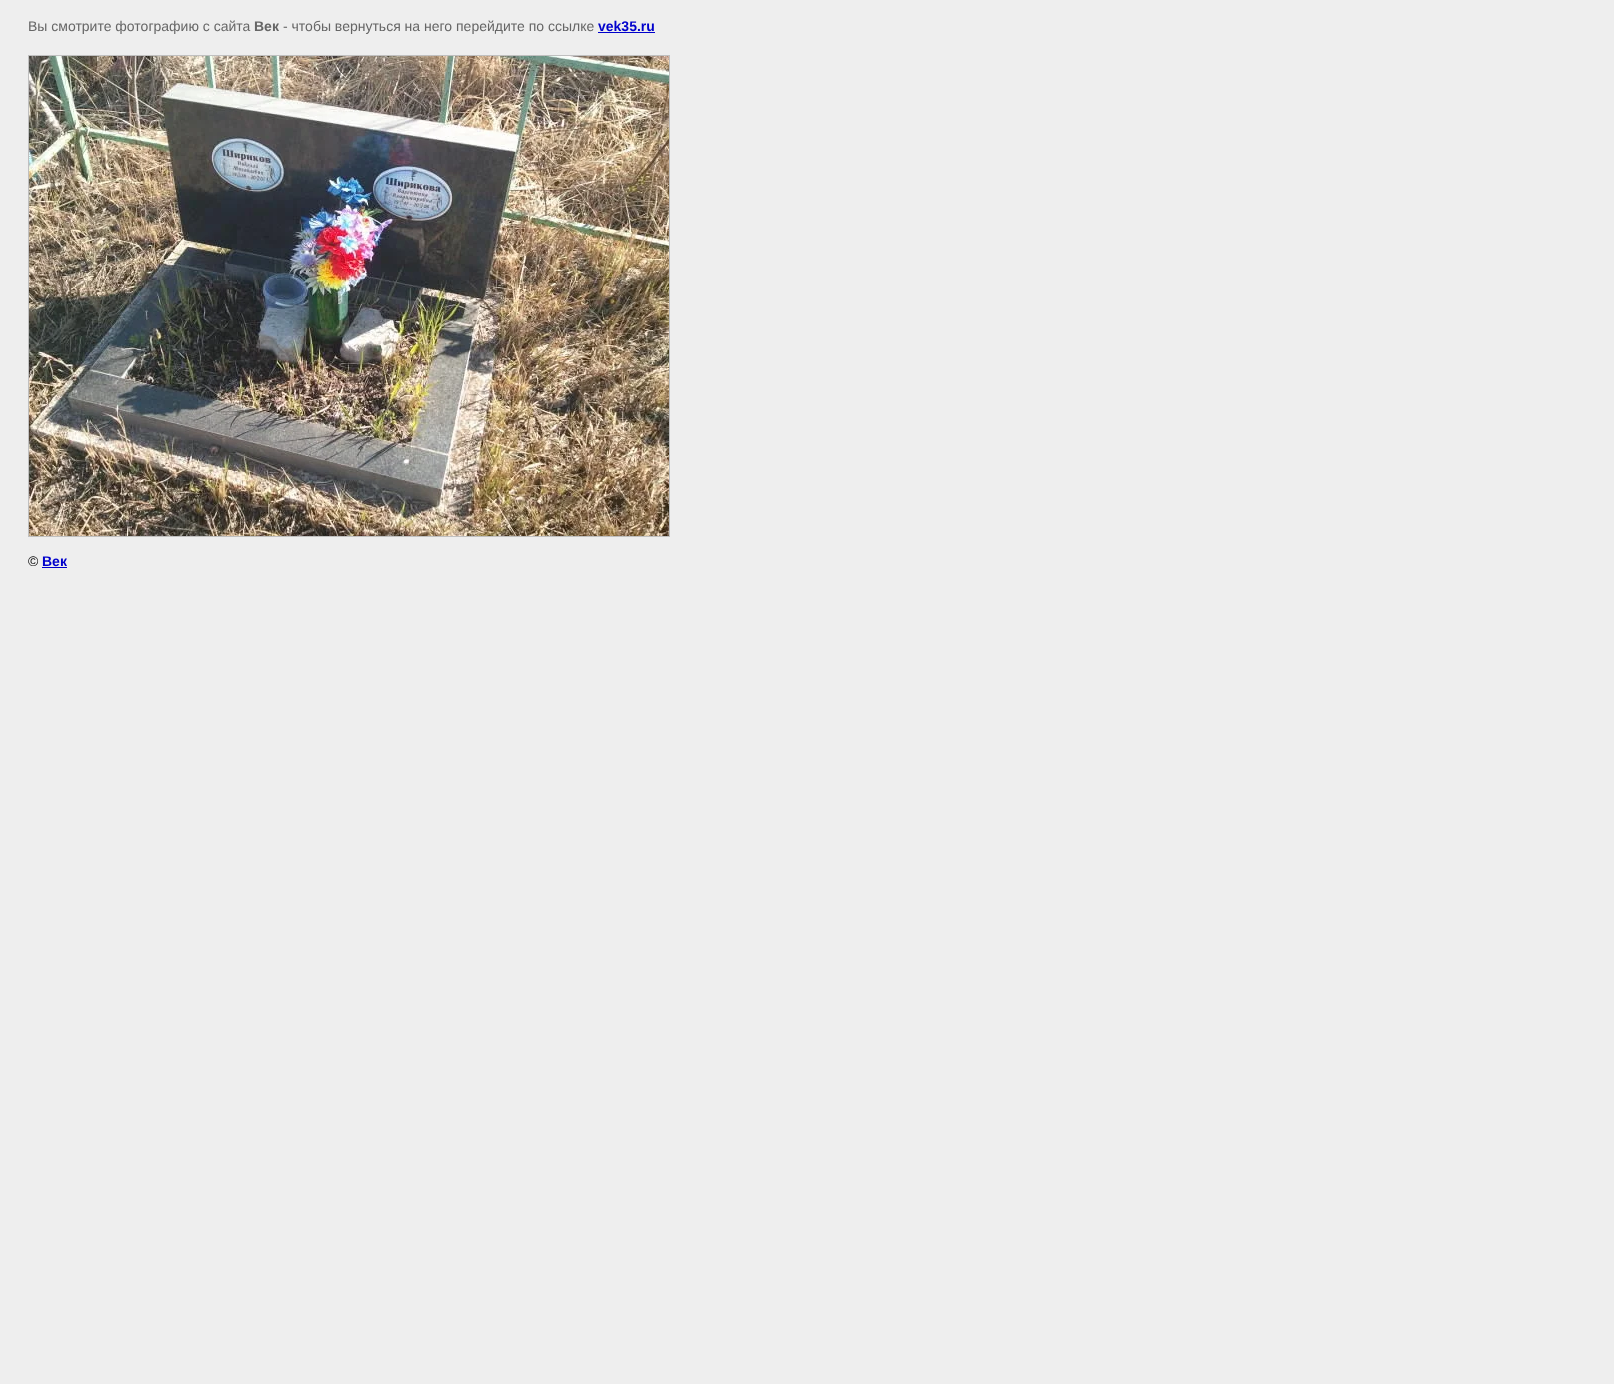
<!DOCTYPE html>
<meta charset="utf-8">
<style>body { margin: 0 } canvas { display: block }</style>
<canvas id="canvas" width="1614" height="1384"></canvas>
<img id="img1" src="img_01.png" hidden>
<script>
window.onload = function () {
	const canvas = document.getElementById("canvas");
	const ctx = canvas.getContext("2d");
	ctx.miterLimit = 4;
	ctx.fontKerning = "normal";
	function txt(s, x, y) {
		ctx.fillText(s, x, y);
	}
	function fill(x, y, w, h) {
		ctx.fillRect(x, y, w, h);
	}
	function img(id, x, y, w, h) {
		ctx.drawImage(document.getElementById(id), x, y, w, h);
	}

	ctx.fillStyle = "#EEEEEE";
	fill(0, 0, 1614, 1384);
	ctx.fillStyle = "#0000CC";
	fill(598, 32, 57, 1);
	ctx.strokeStyle = "#C0C0C0";
	ctx.strokeRect(28.5, 55.5, 641, 481);
	img("img1", 29, 56, 640, 480);
	fill(42, 567, 25, 1);
	ctx.font = "14px Liberation Sans";
	ctx.fillStyle = "#666666";
	txt("Вы смотрите фотографию с сайта", 28, 31);
	ctx.font = "bold 14px Liberation Sans";
	txt("Век", 254, 31);
	ctx.font = "14px Liberation Sans";
	txt("- чтобы вернуться на него перейдите по ссылке", 283, 31);
	ctx.font = "bold 14px Liberation Sans";
	ctx.fillStyle = "#0000CC";
	txt("vek35.ru", 598, 31);
	ctx.font = "14px Liberation Sans";
	ctx.fillStyle = "#000000";
	txt("©", 28, 566);
	ctx.font = "bold 14px Liberation Sans";
	ctx.fillStyle = "#0000CC";
	txt("Век", 42, 566);
};
</script>
